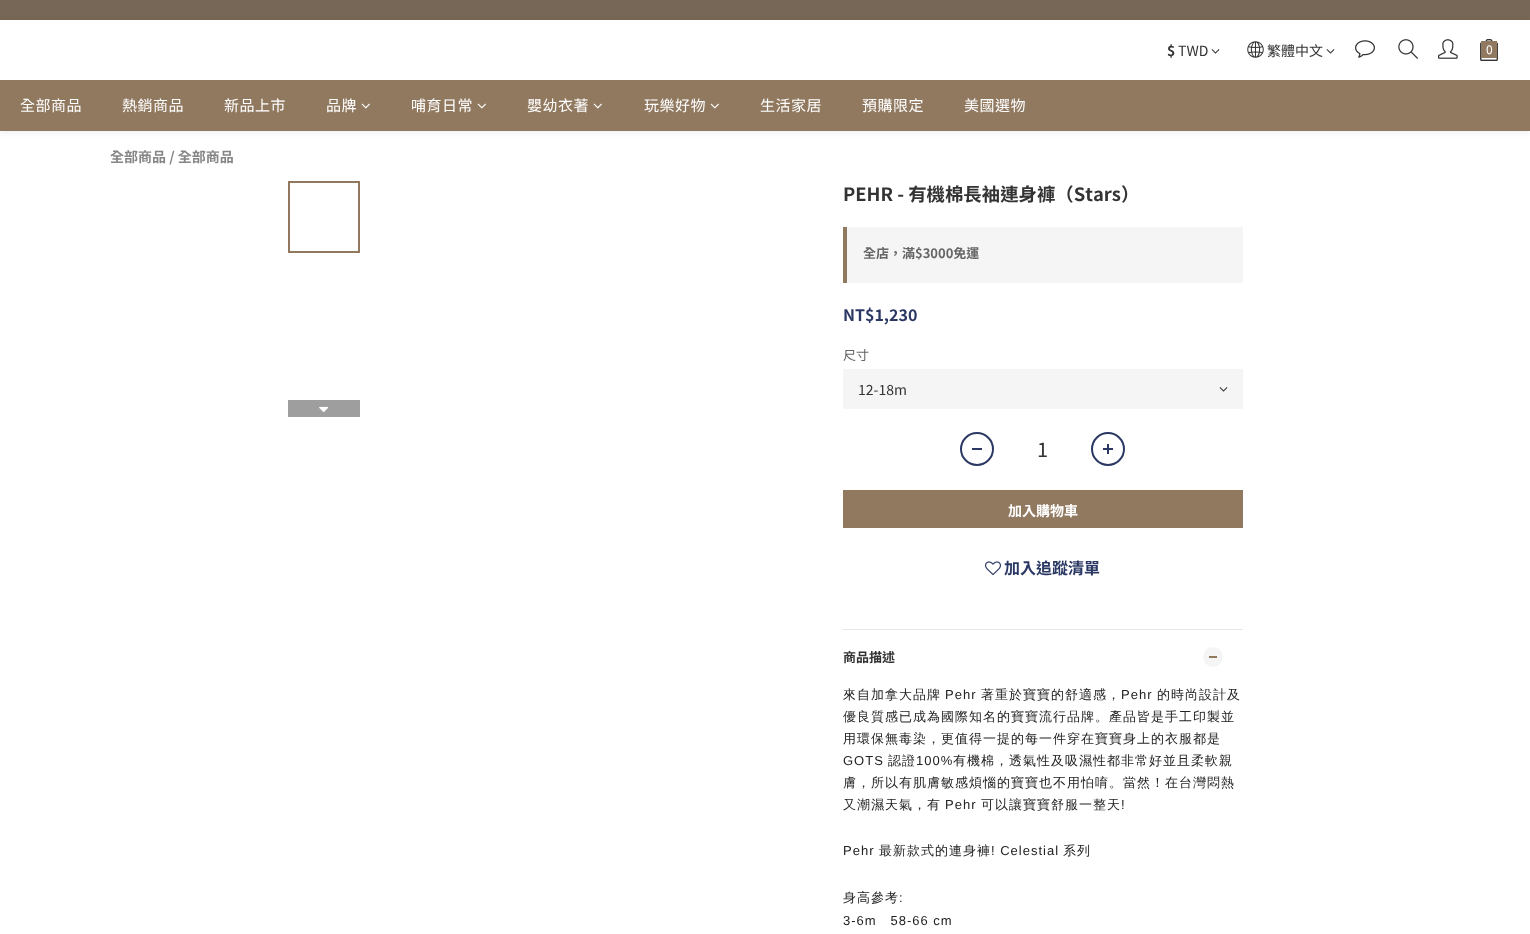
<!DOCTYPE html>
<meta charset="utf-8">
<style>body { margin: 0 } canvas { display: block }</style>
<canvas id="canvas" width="1530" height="934"></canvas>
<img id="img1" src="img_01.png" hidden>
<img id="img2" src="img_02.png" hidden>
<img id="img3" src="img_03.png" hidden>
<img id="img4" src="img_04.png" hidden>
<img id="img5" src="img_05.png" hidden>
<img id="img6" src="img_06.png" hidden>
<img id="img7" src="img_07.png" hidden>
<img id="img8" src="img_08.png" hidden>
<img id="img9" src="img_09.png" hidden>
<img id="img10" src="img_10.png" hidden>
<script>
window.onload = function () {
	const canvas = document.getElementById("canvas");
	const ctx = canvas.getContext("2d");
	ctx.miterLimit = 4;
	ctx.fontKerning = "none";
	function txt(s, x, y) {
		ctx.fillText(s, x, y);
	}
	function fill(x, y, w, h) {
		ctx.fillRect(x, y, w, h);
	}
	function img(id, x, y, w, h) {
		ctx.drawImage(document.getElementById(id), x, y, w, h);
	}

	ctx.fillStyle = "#FFFFFF";
	fill(0, 0, 1530, 934);
	ctx.fillStyle = "#776757";
	fill(0, 0, 1530, 20);
	ctx.fillStyle = "rgba(0, 0, 0, 0.06)";
	ctx.filter = "blur(3px)";
	ctx.beginPath();
	ctx.rect(0, 22, 1530, 111);
	ctx.fill();
	ctx.filter = "none";
	ctx.fillStyle = "#FFFFFF";
	fill(0, 20, 1530, 60);
	img("img1", 1211, 49, 9, 5);
	img("img2", 1247, 41, 17, 17);
	img("img1", 1326, 49, 9, 5);
	img("img3", 1355, 40, 20, 18);
	img("img4", 1398, 39, 20, 20);
	img("img5", 1438, 39, 20, 20);
	img("img6", 1480, 39, 18, 22);
	ctx.fillStyle = "#917960";
	fill(1481, 41, 16, 17);
	fill(0, 80, 1530, 51);
	img("img7", 361, 103, 9, 6);
	img("img7", 477, 103, 9, 6);
	img("img7", 593, 103, 9, 6);
	img("img7", 710, 103, 9, 6);
	ctx.strokeStyle = "#917960";
	ctx.lineWidth = 2;
	ctx.strokeRect(289, 182, 70, 70);
	ctx.fillStyle = "#9E9E9E";
	fill(288, 400, 72, 17);
	img("img8", 319, 406, 10, 6);
	ctx.fillStyle = "#F5F5F5";
	fill(847, 227, 396, 56);
	ctx.fillStyle = "#917960";
	fill(843, 227, 4, 56);
	ctx.fillStyle = "#F5F5F5";
	fill(843, 369, 400, 40);
	img("img9", 1219, 387, 9, 5);
	ctx.beginPath();
	ctx.arc(977, 449, 16, 0, Math.PI * 2);
	ctx.strokeStyle = "#2B3864";
	ctx.stroke();
	ctx.fillStyle = "#2B3864";
	fill(972, 448, 10, 2);
	ctx.beginPath();
	ctx.arc(1108, 449, 16, 0, Math.PI * 2);
	ctx.stroke();
	fill(1103, 448, 10, 2);
	fill(1107, 444, 2, 10);
	ctx.fillStyle = "#917960";
	fill(843, 490, 400, 38);
	img("img10", 985, 561, 16, 15);
	ctx.fillStyle = "#E6E6E6";
	fill(843, 629, 400, 1);
	ctx.fillStyle = "#F5F5F5";
	ctx.beginPath();
	ctx.arc(1213, 657, 10, 0, Math.PI * 2);
	ctx.fill();
	ctx.fillStyle = "#917960";
	fill(1209, 656, 8, 2);
	ctx.font = "bold 14px Noto Sans TC";
	ctx.fillStyle = "#333333";
	txt("$", 1167, 56);
	ctx.font = "14px Noto Sans TC";
	txt("TWD", 1178, 56);
	txt("繁體中文", 1267, 56);
	ctx.font = "12px Noto Sans TC";
	ctx.fillStyle = "#FFFFFF";
	txt("0", 1486, 54);
	ctx.letterSpacing = "0.5px";
	ctx.font = "15px Noto Sans TC";
	txt("全部商品", 20, 111);
	txt("熱銷商品", 122, 111);
	txt("新品上市", 224, 111);
	txt("品牌", 326, 111);
	txt("哺育日常", 411, 111);
	txt("嬰幼衣著", 527, 111);
	txt("玩樂好物", 644, 111);
	txt("生活家居", 760, 111);
	txt("預購限定", 862, 111);
	txt("美國選物", 964, 111);
	ctx.letterSpacing = "0px";
	ctx.font = "bold 14px Noto Sans TC";
	ctx.fillStyle = "#858585";
	txt("全部商品 / 全部商品", 110, 162);
	ctx.font = "bold 18.4px Noto Sans TC";
	ctx.fillStyle = "#333333";
	txt("PEHR - 有機棉長袖連身褲（Stars）", 843, 201);
	ctx.font = "bold 13px Noto Sans TC";
	ctx.fillStyle = "#666666";
	txt("全店，滿$3000免運", 863, 258);
	ctx.font = "bold 16px Noto Sans TC";
	ctx.fillStyle = "#2B3864";
	txt("NT$1,230", 843, 321);
	ctx.font = "13px Noto Sans TC";
	ctx.fillStyle = "#666666";
	txt("尺寸", 843, 360);
	ctx.font = "14px Noto Sans TC";
	ctx.fillStyle = "#333333";
	txt("12-18m", 858, 395);
	ctx.font = "20px Noto Sans TC";
	txt("1", 1037, 457);
	ctx.font = "bold 14px Noto Sans TC";
	ctx.fillStyle = "#FFFFFF";
	txt("加入購物車", 1008, 516);
	ctx.font = "bold 16px Noto Sans TC";
	ctx.fillStyle = "#2B3864";
	txt("加入追蹤清單", 1004, 574);
	ctx.font = "bold 13px Noto Sans TC";
	ctx.fillStyle = "#333333";
	txt("商品描述", 843, 662);
	ctx.letterSpacing = "1px";
	ctx.font = "500 13px WenQuanYi Zen Hei";
	ctx.fillStyle = "#222222";
	txt("來自加拿大品牌", 843, 699);
	ctx.font = "13px Liberation Sans";
	txt("Pehr", 945, 699);
	ctx.font = "500 13px WenQuanYi Zen Hei";
	txt("著重於寶寶的舒適感，", 981, 699);
	ctx.font = "13px Liberation Sans";
	txt("Pehr", 1121, 699);
	ctx.font = "500 13px WenQuanYi Zen Hei";
	txt("的時尚設計及", 1157, 699);
	txt("優良質感已成為國際知名的寶寶流行品牌。產品皆是手工印製並", 843, 721);
	txt("用環保無毒染，更值得一提的每一件穿在寶寶身上的衣服都是", 843, 743);
	ctx.font = "13px Liberation Sans";
	txt("GOTS", 843, 765);
	ctx.font = "500 13px WenQuanYi Zen Hei";
	txt("認證", 888, 765);
	ctx.font = "13px Liberation Sans";
	txt("100%", 916, 765);
	ctx.font = "500 13px WenQuanYi Zen Hei";
	txt("有機棉，透氣性及吸濕性都非常好並且柔軟親", 953, 765);
	txt("膚，所以有肌膚敏感煩惱的寶寶也不用怕唷。當然！在台灣悶熱", 843, 787);
	txt("又潮濕天氣，有", 843, 809);
	ctx.font = "13px Liberation Sans";
	txt("Pehr", 945, 809);
	ctx.font = "500 13px WenQuanYi Zen Hei";
	txt("可以讓寶寶舒服一整天", 981, 809);
	ctx.font = "13px Liberation Sans";
	txt("!", 1121, 809);
	txt("Pehr", 843, 855);
	ctx.font = "500 13px WenQuanYi Zen Hei";
	txt("最新款式的連身褲", 879, 855);
	ctx.font = "13px Liberation Sans";
	txt("! Celestial", 991, 855);
	ctx.font = "500 13px WenQuanYi Zen Hei";
	txt("系列", 1063, 855);
	txt("身高參考", 843, 902);
	ctx.font = "13px Liberation Sans";
	txt(":", 899, 902);
	txt("3-6m   58-66 cm", 843, 925);
};
</script>
